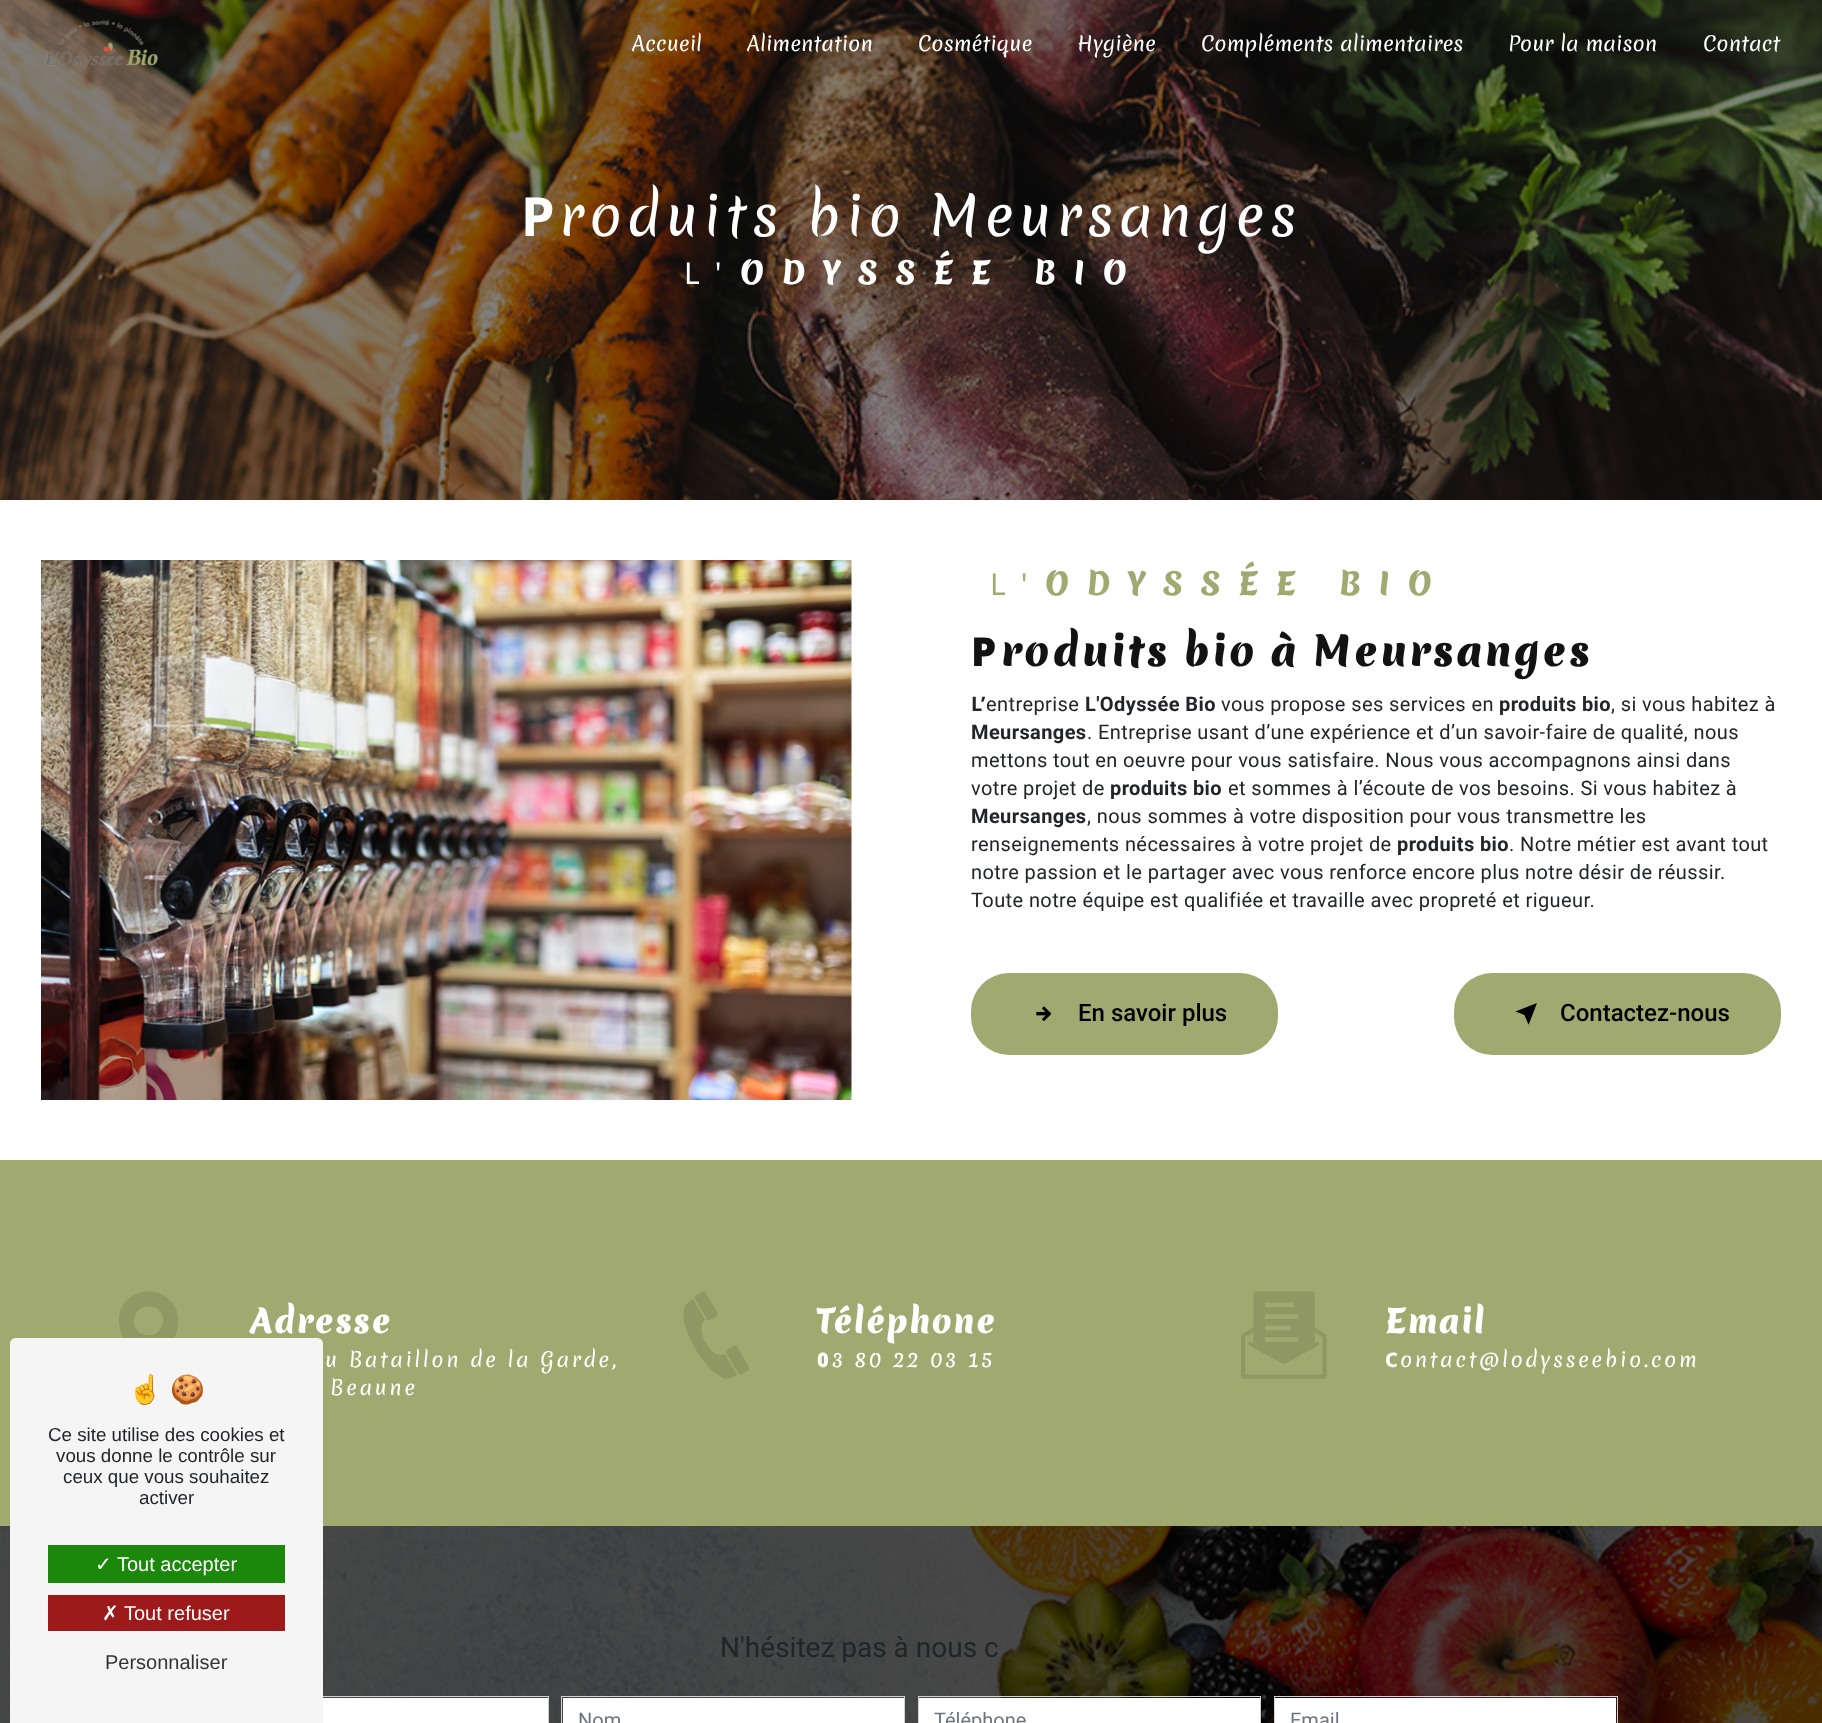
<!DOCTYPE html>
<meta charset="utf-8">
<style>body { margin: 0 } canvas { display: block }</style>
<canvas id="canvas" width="1822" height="1723"></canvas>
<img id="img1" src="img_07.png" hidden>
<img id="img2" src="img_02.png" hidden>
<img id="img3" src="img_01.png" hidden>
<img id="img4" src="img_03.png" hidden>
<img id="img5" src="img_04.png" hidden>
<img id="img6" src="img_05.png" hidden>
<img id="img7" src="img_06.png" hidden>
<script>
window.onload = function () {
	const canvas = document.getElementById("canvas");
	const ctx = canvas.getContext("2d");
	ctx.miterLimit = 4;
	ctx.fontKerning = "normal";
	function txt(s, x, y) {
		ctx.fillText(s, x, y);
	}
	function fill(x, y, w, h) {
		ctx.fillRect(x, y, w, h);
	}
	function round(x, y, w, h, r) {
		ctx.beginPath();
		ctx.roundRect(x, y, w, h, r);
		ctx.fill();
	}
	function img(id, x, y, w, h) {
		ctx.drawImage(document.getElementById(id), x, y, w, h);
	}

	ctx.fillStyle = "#FFFFFF";
	fill(0, 0, 1822, 1723);
	ctx.fillStyle = "#A0A96F";
	fill(0, 1160, 1822, 366);
	ctx.fillStyle = "#909864";
	ctx.beginPath();
	ctx.moveTo(147, 1377);
	ctx.bezierCurveTo(137, 1363, 121, 1341, 119, 1323);
	ctx.bezierCurveTo(116, 1290, 162, 1279, 176, 1309);
	ctx.bezierCurveTo(185, 1330, 165, 1357, 153, 1374);
	ctx.bezierCurveTo(150, 1378, 150, 1381, 147, 1377);
	ctx.closePath();
	ctx.moveTo(163, 1321);
	ctx.bezierCurveTo(164, 1302, 135, 1301, 134, 1321);
	ctx.bezierCurveTo(133, 1339, 162, 1341, 163, 1321);
	ctx.closePath();
	ctx.fill();
	img("img1", 0, 1526, 1822, 197);
	ctx.fillStyle = "#FFFFFF";
	fill(323, 1698, 225, 25);
	ctx.strokeStyle = "#CED4DA";
	ctx.strokeRect(205.5, 1696.5, 343, 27);
	ctx.fillStyle = "#F5F5F5";
	ctx.beginPath();
	ctx.moveTo(16, 1338);
	ctx.lineTo(317, 1338);
	ctx.bezierCurveTo(320.5, 1338, 323, 1340.5, 323, 1344);
	ctx.lineTo(323, 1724);
	ctx.lineTo(10, 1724);
	ctx.lineTo(10, 1344);
	ctx.bezierCurveTo(10, 1340.5, 12.5, 1338, 16, 1338);
	ctx.closePath();
	ctx.fill();
	ctx.fillStyle = "#1B870B";
	fill(48, 1545, 237, 38);
	ctx.fillStyle = "#9C1A1A";
	fill(48, 1595, 237, 36);
	img("img2", 0, 0, 1822, 500);
	img("img3", 44, 19, 114, 51);
	img("img4", 41, 560, 811, 540);
	ctx.fillStyle = "#A0A96F";
	round(971, 973, 307, 82, 38);
	img("img5", 1036, 1006, 16, 15);
	round(1454, 973, 327, 82, 38);
	ctx.fillStyle = "#000000";
	ctx.beginPath();
	ctx.moveTo(1537, 1003);
	ctx.lineTo(1529.5, 1022.5);
	ctx.bezierCurveTo(1528.5, 1024.5, 1529, 1025.5, 1528, 1023.5);
	ctx.lineTo(1524.5, 1015);
	ctx.lineTo(1515.5, 1011.5);
	ctx.closePath();
	ctx.fill();
	img("img6", 683, 1291, 66, 88);
	img("img7", 1241, 1291, 86, 88);
	ctx.fillStyle = "#FFFFFF";
	fill(563, 1698, 341, 25);
	ctx.strokeRect(561.5, 1696.5, 343, 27);
	fill(919, 1698, 341, 25);
	ctx.strokeRect(918.5, 1696.5, 342, 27);
	fill(1275, 1698, 341, 25);
	ctx.strokeRect(1274.5, 1696.5, 343, 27);
	ctx.font = "28px Noto Color Emoji";
	ctx.fillStyle = "#212529";
	txt("☝", 128, 1399);
	txt("🍪", 170, 1399);
	ctx.font = "18.75px Liberation Sans";
	txt("Ce site utilise des cookies et", 48, 1441);
	txt("vous donne le contrôle sur", 56, 1462);
	txt("ceux que vous souhaitez", 63, 1483);
	txt("activer", 139, 1504);
	ctx.font = "20px DejaVu Sans";
	ctx.fillStyle = "#FFFFFF";
	txt("✓", 95, 1571);
	ctx.font = "20px Liberation Sans";
	txt("Tout accepter", 117, 1571);
	ctx.font = "20px DejaVu Sans";
	txt("✗", 102, 1620);
	ctx.font = "20px Liberation Sans";
	txt("Tout refuser", 124, 1620);
	ctx.fillStyle = "#333333";
	txt("Personnaliser", 105, 1669);
	ctx.font = "20px Merienda";
	ctx.fillStyle = "#FFFFFF";
	txt("Accueil", 632, 51);
	txt("Alimentation", 747, 51);
	txt("Cosmétique", 918, 51);
	txt("Hygiène", 1077, 51);
	txt("Compléments alimentaires", 1201, 51);
	txt("Pour la maison", 1508, 51);
	txt("Contact", 1703, 51);
	ctx.letterSpacing = "5px";
	ctx.font = "bold 54px Noto Sans";
	txt("P", 521, 236);
	ctx.font = "54px Merienda";
	txt("roduits bio Meursanges", 559, 236);
	ctx.letterSpacing = "17.5px";
	ctx.font = "30px Noto Sans";
	txt("L'", 684, 284);
	ctx.font = "900 30px Merienda";
	txt("ODYSSÉE BIO", 740, 284);
	ctx.font = "30px Noto Sans";
	ctx.fillStyle = "#A0A96F";
	txt("L'", 990, 595);
	ctx.font = "900 30px Merienda";
	txt("ODYSSÉE BIO", 1045, 595);
	ctx.letterSpacing = "2.5px";
	ctx.font = "900 40px Noto Sans";
	ctx.fillStyle = "#121212";
	txt("P", 971, 666);
	ctx.font = "900 40px Merienda";
	txt("roduits bio à Meursanges", 1001, 666);
	ctx.letterSpacing = "0.4px";
	ctx.font = "bold 20px Noto Sans";
	ctx.fillStyle = "#212529";
	txt("L’", 971, 711);
	ctx.font = "20px Roboto";
	txt("entreprise", 986, 711);
	ctx.font = "bold 20px Roboto";
	txt("L'Odyssée Bio", 1085, 711);
	ctx.font = "20px Roboto";
	txt("vous propose ses services en", 1221, 711);
	ctx.font = "bold 20px Roboto";
	txt("produits bio", 1499, 711);
	ctx.font = "20px Roboto";
	txt(", si vous habitez à", 1611, 711);
	ctx.font = "bold 20px Roboto";
	txt("Meursanges", 971, 739);
	ctx.font = "20px Roboto";
	txt(". Entreprise usant d’une expérience et d’un savoir-faire de qualité, nous", 1087, 739);
	txt("mettons tout en oeuvre pour vous satisfaire. Nous vous accompagnons ainsi dans", 971, 767);
	txt("votre projet de", 971, 795);
	ctx.font = "bold 20px Roboto";
	txt("produits bio", 1110, 795);
	ctx.font = "20px Roboto";
	txt("et sommes à l’écoute de vos besoins. Si vous habitez à", 1228, 795);
	ctx.font = "bold 20px Roboto";
	txt("Meursanges", 971, 823);
	ctx.font = "20px Roboto";
	txt(", nous sommes à votre disposition pour vous transmettre les", 1087, 823);
	txt("renseignements nécessaires à votre projet de", 971, 851);
	ctx.font = "bold 20px Roboto";
	txt("produits bio", 1397, 851);
	ctx.font = "20px Roboto";
	txt(". Notre métier est avant tout", 1509, 851);
	txt("notre passion et le partager avec vous renforce encore plus notre désir de réussir.", 971, 879);
	txt("Toute notre équipe est qualifiée et travaille avec propreté et rigueur.", 971, 907);
	ctx.letterSpacing = "0px";
	ctx.font = "500 24px Roboto";
	ctx.fillStyle = "#000000";
	txt("En savoir plus", 1078, 1021);
	txt("Contactez-nous", 1560, 1021);
	ctx.letterSpacing = "1.25px";
	ctx.font = "900 32px Merienda";
	ctx.fillStyle = "#FFFFFF";
	txt("Adresse", 250, 1333);
	ctx.letterSpacing = "2.5px";
	ctx.font = "20px Merienda";
	txt("u Bataillon de la Garde,", 325, 1367);
	txt("Beaune", 330, 1395);
	ctx.letterSpacing = "1.25px";
	ctx.font = "900 32px Merienda";
	txt("Téléphone", 817, 1333);
	ctx.letterSpacing = "2.5px";
	ctx.font = "900 20px Noto Sans";
	txt("0", 817, 1367);
	ctx.font = "20px Merienda";
	txt("3 80 22 03 15", 832, 1367);
	ctx.letterSpacing = "1.25px";
	ctx.font = "900 32px Merienda";
	txt("Email", 1385, 1333);
	ctx.letterSpacing = "2.5px";
	ctx.font = "800 20px Noto Sans";
	txt("C", 1385, 1367);
	ctx.font = "20px Merienda";
	txt("ontact@lodysseebio.com", 1400, 1367);
	ctx.letterSpacing = "0px";
	ctx.font = "28px Roboto";
	ctx.fillStyle = "#212529";
	txt("N'hésitez pas à nous c", 720, 1657);
	ctx.font = "20px Roboto";
	ctx.fillStyle = "#6C757D";
	txt("Nom", 578, 1727);
	txt("Téléphone", 934, 1727);
	txt("Email", 1290, 1727);
};
</script>
